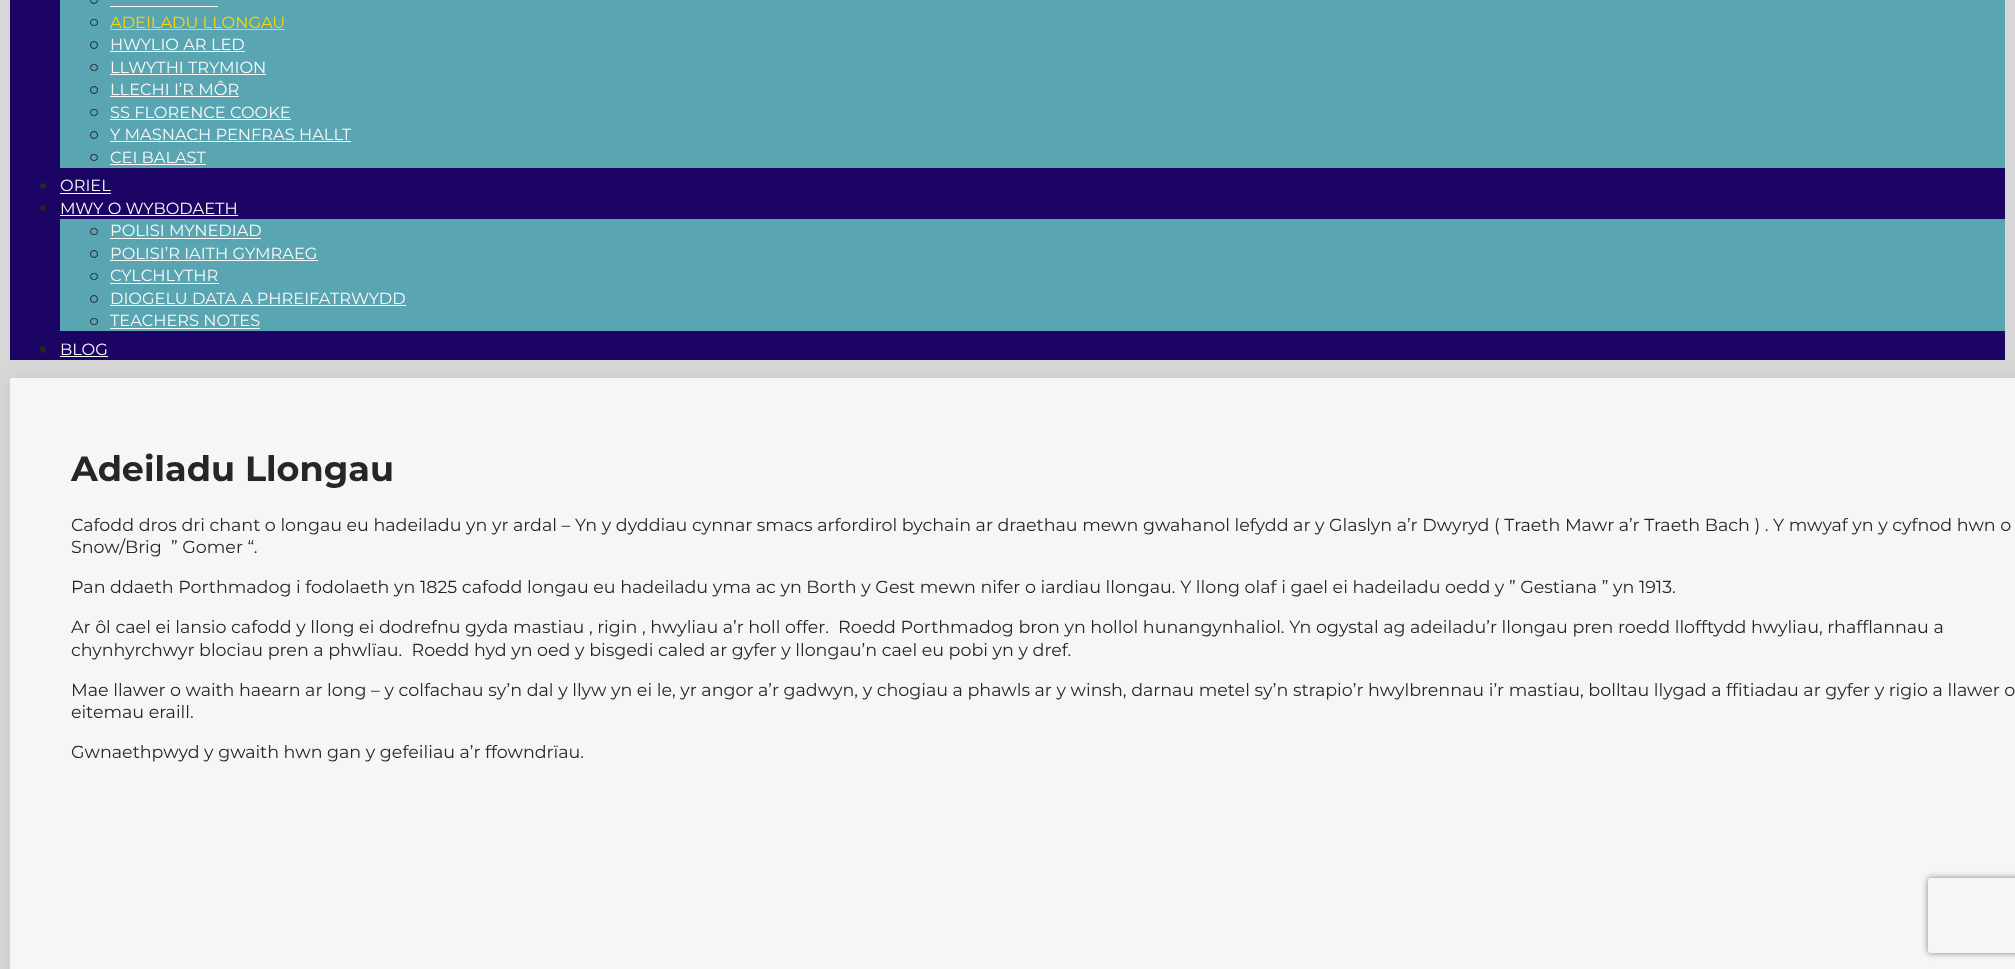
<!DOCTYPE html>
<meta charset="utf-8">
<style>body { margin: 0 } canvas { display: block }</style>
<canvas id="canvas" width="2015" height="969"></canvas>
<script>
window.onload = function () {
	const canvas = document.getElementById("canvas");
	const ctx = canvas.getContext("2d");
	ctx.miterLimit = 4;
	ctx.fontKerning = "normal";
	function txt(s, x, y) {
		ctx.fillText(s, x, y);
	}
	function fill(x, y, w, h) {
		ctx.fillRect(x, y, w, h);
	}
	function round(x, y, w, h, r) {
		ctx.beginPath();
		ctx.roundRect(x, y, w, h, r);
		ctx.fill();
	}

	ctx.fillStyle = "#D7D7D7";
	fill(0, 0, 2015, 969);
	ctx.fillStyle = "#1C0464";
	fill(10, 0, 1995, 360);
	ctx.fillStyle = "#59A5B2";
	fill(60, 0, 1945, 168);
	ctx.beginPath();
	ctx.arc(94, 0, 3.5, 0, Math.PI * 2);
	ctx.strokeStyle = "#242628";
	ctx.stroke();
	ctx.fillStyle = "#FAFAFA";
	fill(110, 6, 108, 1);
	ctx.beginPath();
	ctx.roundRect(90.5, 19.5, 7, 6, 3);
	ctx.stroke();
	ctx.fillStyle = "#FFD701";
	fill(110, 29, 175, 1);
	ctx.beginPath();
	ctx.arc(94, 45, 3.5, 0, Math.PI * 2);
	ctx.stroke();
	ctx.fillStyle = "#FAFAFA";
	fill(110, 51, 135, 1);
	ctx.beginPath();
	ctx.roundRect(90.5, 64.5, 7, 6, 3);
	ctx.stroke();
	fill(110, 74, 156, 1);
	ctx.beginPath();
	ctx.arc(94, 90, 3.5, 0, Math.PI * 2);
	ctx.stroke();
	fill(110, 96, 129, 1);
	ctx.beginPath();
	ctx.roundRect(90.5, 109.5, 7, 6, 3);
	ctx.stroke();
	fill(110, 119, 181, 1);
	ctx.beginPath();
	ctx.arc(94, 135, 3.5, 0, Math.PI * 2);
	ctx.stroke();
	fill(110, 141, 241, 1);
	ctx.beginPath();
	ctx.roundRect(90.5, 154.5, 7, 6, 3);
	ctx.stroke();
	fill(110, 164, 96, 1);
	ctx.fillStyle = "#242628";
	ctx.beginPath();
	ctx.arc(43, 186, 3, 0, Math.PI * 2);
	ctx.fill();
	ctx.fillStyle = "#FAFAFA";
	fill(60, 193, 51, 1);
	ctx.fillStyle = "#242628";
	ctx.beginPath();
	ctx.arc(43, 208, 3, 0, Math.PI * 2);
	ctx.fill();
	ctx.fillStyle = "#FAFAFA";
	fill(60, 215, 178, 1);
	ctx.fillStyle = "#59A5B2";
	fill(60, 219, 1945, 112);
	ctx.beginPath();
	ctx.roundRect(90.5, 228.5, 7, 6, 3);
	ctx.stroke();
	ctx.fillStyle = "#FAFAFA";
	fill(110, 238, 151, 1);
	ctx.beginPath();
	ctx.arc(94, 254, 3.5, 0, Math.PI * 2);
	ctx.stroke();
	fill(110, 260, 208, 1);
	ctx.beginPath();
	ctx.roundRect(90.5, 273.5, 7, 6, 3);
	ctx.stroke();
	fill(110, 283, 109, 1);
	ctx.beginPath();
	ctx.arc(94, 299, 3.5, 0, Math.PI * 2);
	ctx.stroke();
	fill(110, 305, 296, 1);
	ctx.beginPath();
	ctx.roundRect(90.5, 318.5, 7, 6, 3);
	ctx.stroke();
	fill(110, 328, 150, 1);
	ctx.fillStyle = "#242628";
	round(40, 346, 6, 7, 3);
	ctx.fillStyle = "#FAFAFA";
	fill(60, 356, 48, 1);
	ctx.fillStyle = "rgba(0, 0, 0, 0.06)";
	ctx.filter = "blur(11px)";
	ctx.beginPath();
	ctx.rect(10, 378, 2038, 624);
	ctx.fill();
	ctx.filter = "none";
	ctx.fillStyle = "#F6F6F6";
	fill(10, 378, 2005, 591);
	ctx.save();
	ctx.beginPath();
	ctx.moveTo(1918, 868);
	ctx.lineTo(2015, 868);
	ctx.lineTo(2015, 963);
	ctx.lineTo(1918, 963);
	ctx.closePath();
	ctx.moveTo(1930.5, 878);
	ctx.lineTo(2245.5, 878);
	ctx.bezierCurveTo(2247, 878, 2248, 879, 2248, 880.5);
	ctx.lineTo(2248, 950.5);
	ctx.bezierCurveTo(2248, 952, 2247, 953, 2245.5, 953);
	ctx.lineTo(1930.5, 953);
	ctx.bezierCurveTo(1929, 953, 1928, 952, 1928, 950.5);
	ctx.lineTo(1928, 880.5);
	ctx.bezierCurveTo(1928, 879, 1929, 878, 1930.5, 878);
	ctx.closePath();
	ctx.clip("evenodd");
	ctx.fillStyle = "#808080";
	ctx.filter = "blur(3px)";
	ctx.beginPath();
	ctx.roundRect(1928, 878, 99, 75, 2.5);
	ctx.fill();
	ctx.filter = "none";
	ctx.restore();
	ctx.font = "16.25px Montserrat";
	ctx.fillStyle = "#FFD701";
	txt("ADEILADU LLONGAU", 110, 28);
	ctx.fillStyle = "#FAFAFA";
	txt("HWYLIO AR LED", 110, 50);
	txt("LLWYTHI TRYMION", 110, 73);
	txt("LLECHI I’R MÔR", 110, 95);
	txt("SS FLORENCE COOKE", 110, 118);
	txt("Y MASNACH PENFRAS HALLT", 110, 140);
	txt("CEI BALAST", 110, 163);
	txt("ORIEL", 60, 191);
	txt("MWY O WYBODAETH", 60, 214);
	txt("POLISI MYNEDIAD", 110, 236);
	txt("POLISI’R IAITH GYMRAEG", 110, 259);
	txt("CYLCHLYTHR", 110, 281);
	txt("DIOGELU DATA A PHREIFATRWYDD", 110, 304);
	txt("TEACHERS NOTES", 110, 326);
	txt("BLOG", 60, 355);
	ctx.font = "bold 35px Montserrat";
	ctx.fillStyle = "#242628";
	txt("Adeiladu Llongau", 71, 481);
	ctx.font = "17.5px Montserrat";
	txt("Cafodd dros dri chant o longau eu hadeiladu yn yr ardal – Yn y dyddiau cynnar smacs arfordirol bychain ar draethau mewn gwahanol lefydd ar y Glaslyn a’r Dwyryd ( Traeth Mawr a’r Traeth Bach ) . Y mwyaf yn y cyfnod hwn o", 71, 531);
	txt("Snow/Brig  ” Gomer “.", 71, 553);
	txt("Pan ddaeth Porthmadog i fodolaeth yn 1825 cafodd longau eu hadeiladu yma ac yn Borth y Gest mewn nifer o iardiau llongau. Y llong olaf i gael ei hadeiladu oedd y ” Gestiana ” yn 1913.", 71, 593);
	txt("Ar ôl cael ei lansio cafodd y llong ei dodrefnu gyda mastiau , rigin , hwyliau a’r holl offer.  Roedd Porthmadog bron yn hollol hunangynhaliol. Yn ogystal ag adeiladu’r llongau pren roedd llofftydd hwyliau, rhafflannau a", 71, 633);
	txt("chynhyrchwyr blociau pren a phwlïau.  Roedd hyd yn oed y bisgedi caled ar gyfer y llongau’n cael eu pobi yn y dref.", 71, 656);
	txt("Mae llawer o waith haearn ar long – y colfachau sy’n dal y llyw yn ei le, yr angor a’r gadwyn, y chogiau a phawls ar y winsh, darnau metel sy’n strapio’r hwylbrennau i’r mastiau, bolltau llygad a ffitiadau ar gyfer y rigio a llawer o", 71, 696);
	txt("eitemau eraill.", 71, 718);
	txt("Gwnaethpwyd y gwaith hwn gan y gefeiliau a’r ffowndrïau.", 71, 758);
};
</script>
